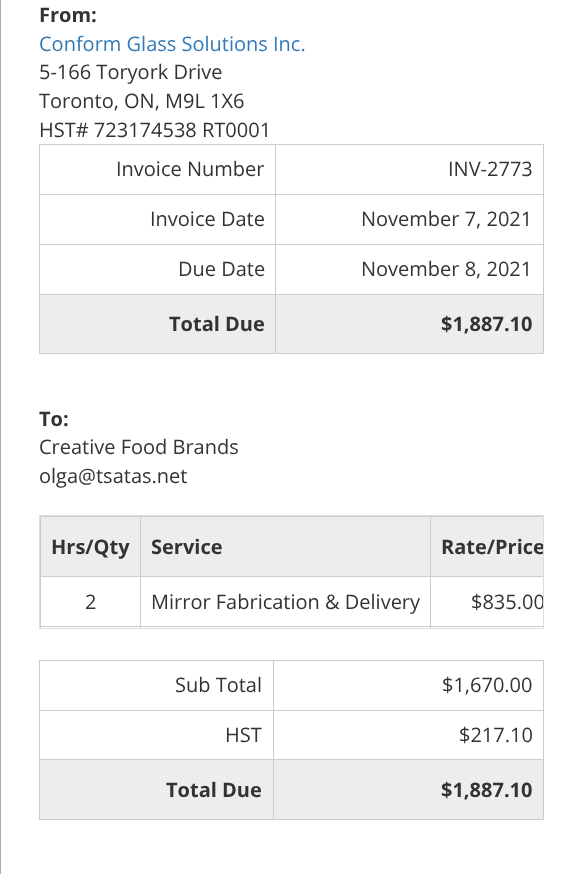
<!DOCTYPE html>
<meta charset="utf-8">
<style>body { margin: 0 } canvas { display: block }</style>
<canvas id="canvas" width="582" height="874"></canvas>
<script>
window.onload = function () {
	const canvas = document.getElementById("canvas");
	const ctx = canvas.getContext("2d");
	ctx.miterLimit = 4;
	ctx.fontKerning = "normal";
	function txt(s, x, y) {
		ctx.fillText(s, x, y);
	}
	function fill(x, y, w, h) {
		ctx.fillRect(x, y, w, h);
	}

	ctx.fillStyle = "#FFFFFF";
	fill(0, 0, 582, 874);
	ctx.strokeStyle = "#AAAAAA";
	ctx.strokeRect(0.5, -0.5, 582, 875);
	ctx.fillStyle = "#CCCCCC";
	fill(39, 144, 505, 1);
	fill(543, 144, 1, 210);
	fill(39, 353, 505, 1);
	fill(39, 144, 1, 210);
	fill(275, 194, 269, 1);
	fill(275, 244, 269, 1);
	fill(275, 294, 269, 1);
	fill(275, 294, 1, 60);
	fill(39, 294, 237, 1);
	fill(275, 244, 1, 51);
	fill(39, 244, 237, 1);
	fill(275, 194, 1, 51);
	fill(39, 194, 237, 1);
	fill(275, 144, 1, 51);
	ctx.fillStyle = "#EDEDED";
	fill(40, 295, 235, 58);
	fill(276, 295, 267, 58);
	ctx.strokeStyle = "#DDDDDD";
	ctx.strokeRect(39.5, 515.5, 504, 113);
	ctx.fillStyle = "#CCCCCC";
	fill(40, 516, 503, 1);
	fill(40, 626, 503, 1);
	fill(40, 516, 1, 112);
	ctx.fillStyle = "#EDEDED";
	fill(41, 517, 99, 59);
	fill(141, 517, 289, 59);
	ctx.fillStyle = "#CCCCCC";
	fill(430, 576, 113, 1);
	fill(430, 576, 1, 52);
	fill(140, 576, 291, 1);
	fill(140, 576, 1, 52);
	fill(40, 576, 101, 1);
	fill(140, 516, 1, 62);
	ctx.fillStyle = "#EDEDED";
	fill(431, 517, 112, 59);
	ctx.fillStyle = "#CCCCCC";
	fill(430, 516, 1, 62);
	fill(39, 660, 505, 1);
	fill(543, 660, 1, 160);
	fill(39, 819, 505, 1);
	fill(39, 660, 1, 160);
	fill(273, 710, 271, 1);
	fill(273, 759, 271, 1);
	fill(273, 759, 1, 61);
	fill(39, 759, 235, 1);
	fill(273, 710, 1, 50);
	fill(39, 710, 235, 1);
	fill(273, 660, 1, 51);
	ctx.fillStyle = "#EDEDED";
	fill(40, 760, 233, 59);
	fill(274, 760, 269, 59);
	ctx.font = "bold 20px Open Sans";
	ctx.fillStyle = "#333333";
	txt("From:", 39, 22);
	ctx.font = "20px Open Sans";
	ctx.fillStyle = "#337AB7";
	txt("Conform Glass Solutions Inc.", 39, 51);
	ctx.fillStyle = "#333333";
	txt("5-166 Toryork Drive", 39, 79);
	txt("Toronto, ON, M9L 1X6", 39, 108);
	txt("HST# 723174538 RT0001", 39, 137);
	txt("Invoice Number", 116, 176);
	txt("INV-2773", 448, 176);
	txt("Invoice Date", 150, 226);
	txt("November 7, 2021", 361, 226);
	txt("Due Date", 178, 276);
	txt("November 8, 2021", 361, 276);
	ctx.font = "bold 20px Open Sans";
	txt("Total Due", 169, 331);
	txt("$1,887.10", 441, 331);
	txt("To:", 39, 426);
	ctx.font = "20px Open Sans";
	txt("Creative Food Brands", 39, 454);
	txt("olga@tsatas.net", 39, 483);
	ctx.font = "bold 20px Open Sans";
	txt("Hrs/Qty", 51, 554);
	txt("Service", 151, 554);
	ctx.save();
	ctx.beginPath();
	ctx.rect(40, 516, 503, 112);
	ctx.clip();
	txt("Rate/Price", 441, 554);
	ctx.restore();
	ctx.font = "20px Open Sans";
	txt("2", 85, 609);
	txt("Mirror Fabrication & Delivery", 151, 609);
	ctx.save();
	ctx.beginPath();
	ctx.rect(40, 516, 503, 112);
	ctx.clip();
	txt("$835.00", 471, 609);
	ctx.restore();
	txt("Sub Total", 175, 692);
	txt("$1,670.00", 442, 692);
	txt("HST", 225, 742);
	txt("$217.10", 459, 742);
	ctx.font = "bold 20px Open Sans";
	txt("Total Due", 166, 797);
	txt("$1,887.10", 441, 797);
};
</script>
